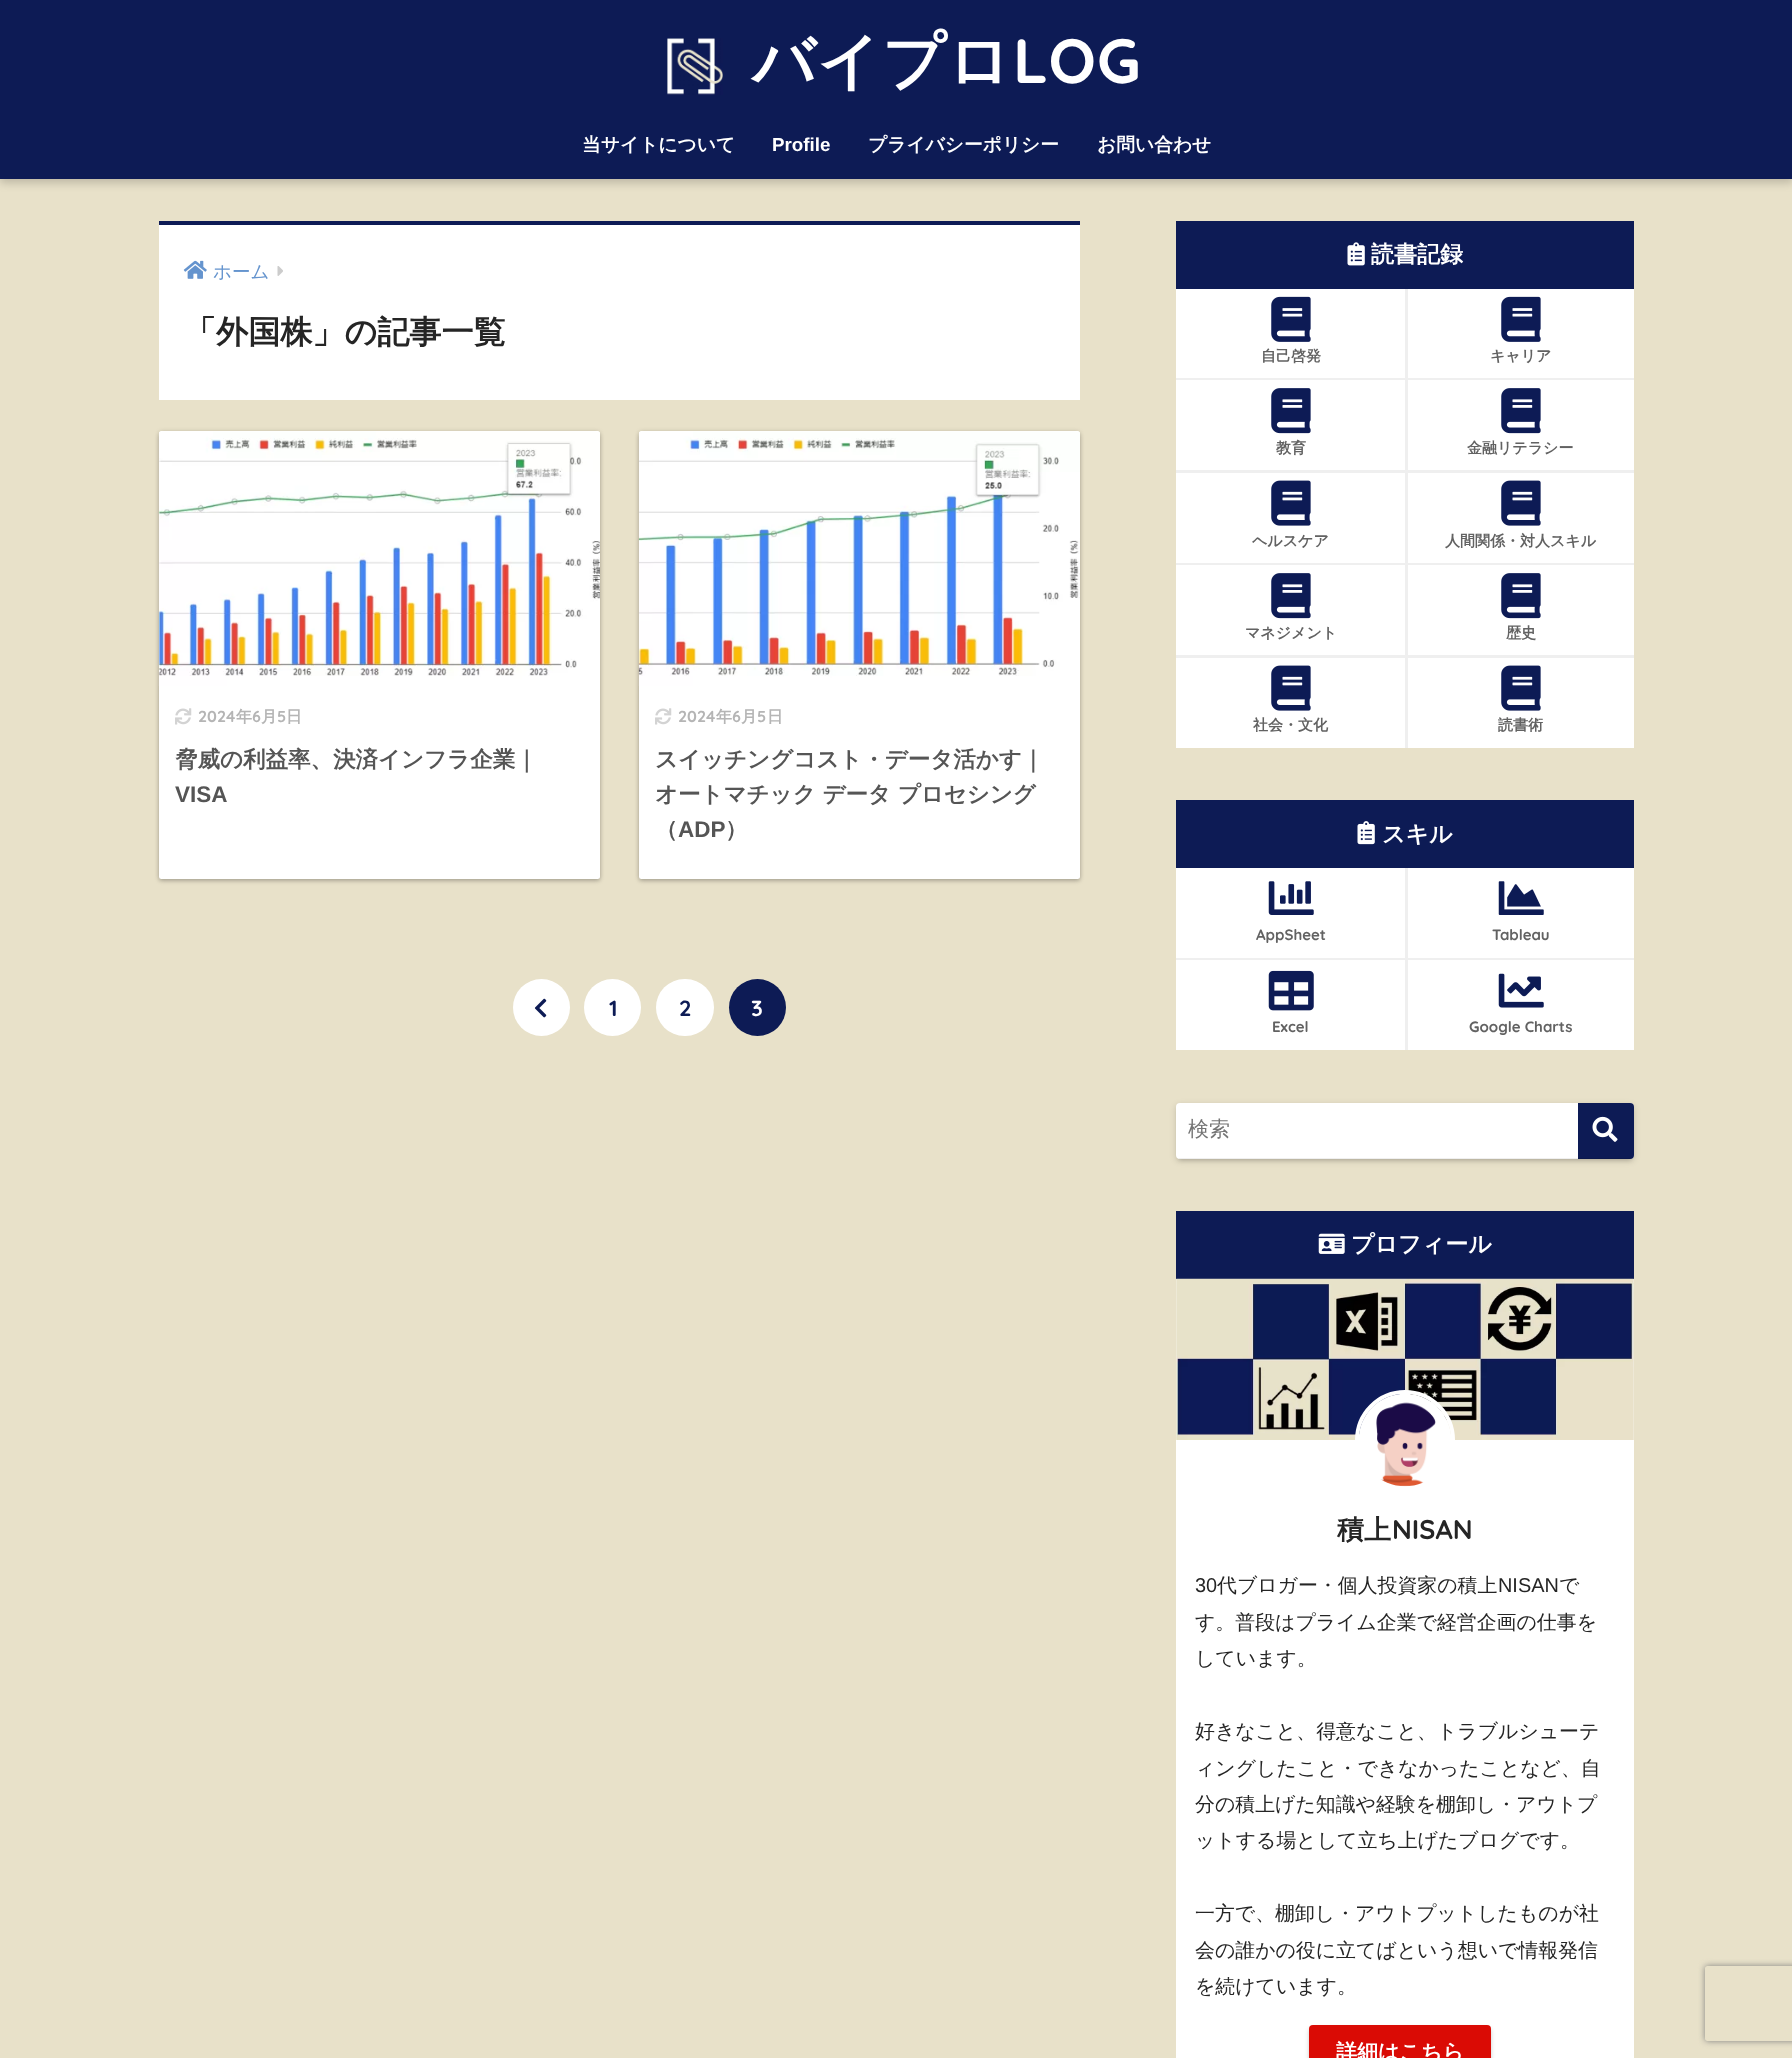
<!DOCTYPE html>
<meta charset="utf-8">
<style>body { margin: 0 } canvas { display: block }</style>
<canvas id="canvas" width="1792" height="2058"></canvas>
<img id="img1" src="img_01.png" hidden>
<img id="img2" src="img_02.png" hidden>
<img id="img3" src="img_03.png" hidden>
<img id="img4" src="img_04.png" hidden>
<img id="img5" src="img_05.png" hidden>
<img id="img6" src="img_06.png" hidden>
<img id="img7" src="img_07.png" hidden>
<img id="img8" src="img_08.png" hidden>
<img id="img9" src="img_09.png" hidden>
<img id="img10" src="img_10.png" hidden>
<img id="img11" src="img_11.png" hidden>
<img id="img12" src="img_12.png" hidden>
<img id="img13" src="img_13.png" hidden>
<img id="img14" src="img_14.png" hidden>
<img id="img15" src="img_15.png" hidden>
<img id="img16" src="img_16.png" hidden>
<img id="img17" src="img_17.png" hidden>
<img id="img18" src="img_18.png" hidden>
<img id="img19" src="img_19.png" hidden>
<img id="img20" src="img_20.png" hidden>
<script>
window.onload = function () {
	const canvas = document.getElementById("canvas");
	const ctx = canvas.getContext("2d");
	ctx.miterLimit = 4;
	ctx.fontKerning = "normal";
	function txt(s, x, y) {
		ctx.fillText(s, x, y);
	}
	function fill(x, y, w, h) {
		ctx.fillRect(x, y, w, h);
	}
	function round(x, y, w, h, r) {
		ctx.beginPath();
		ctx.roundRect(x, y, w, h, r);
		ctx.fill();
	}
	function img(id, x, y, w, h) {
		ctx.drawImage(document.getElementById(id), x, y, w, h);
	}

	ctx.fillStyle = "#E8E1C9";
	fill(0, 0, 1792, 2058);
	ctx.fillStyle = "rgba(0, 0, 0, 0.18)";
	ctx.filter = "blur(4px)";
	ctx.beginPath();
	ctx.rect(0, 4, 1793, 179);
	ctx.fill();
	ctx.filter = "none";
	ctx.fillStyle = "#0D1B55";
	fill(0, 0, 1792, 179);
	img("img1", 667, 38, 56, 57);
	ctx.fillStyle = "#FFFFFF";
	fill(159, 225, 921, 175);
	ctx.fillStyle = "#0D1B55";
	fill(159, 221, 921, 4);
	img("img2", 183, 260, 24, 19);
	img("img3", 277, 266, 6, 10);
	ctx.fillStyle = "rgba(0, 0, 0, 0.22)";
	ctx.filter = "blur(2px)";
	ctx.beginPath();
	ctx.roundRect(159, 434, 441, 447, 2.5);
	ctx.fill();
	ctx.filter = "none";
	ctx.fillStyle = "rgba(0, 0, 0, 0.12)";
	ctx.filter = "blur(2px)";
	ctx.beginPath();
	ctx.roundRect(159, 431, 441, 448, 2.5);
	ctx.fill();
	ctx.filter = "none";
	ctx.fillStyle = "#FFFFFF";
	round(159, 431, 441, 448, 2.5);
	img("img4", 158, 431, 442, 255);
	img("img5", 175, 708, 17, 17);
	ctx.fillStyle = "rgba(0, 0, 0, 0.22)";
	ctx.filter = "blur(2px)";
	ctx.beginPath();
	ctx.roundRect(639, 434, 441, 447, 2.5);
	ctx.fill();
	ctx.filter = "none";
	ctx.fillStyle = "rgba(0, 0, 0, 0.12)";
	ctx.filter = "blur(2px)";
	ctx.beginPath();
	ctx.roundRect(639, 431, 441, 448, 2.5);
	ctx.fill();
	ctx.filter = "none";
	ctx.fillStyle = "#FFFFFF";
	round(639, 431, 441, 448, 2.5);
	img("img6", 638, 431, 442, 255);
	img("img5", 655, 708, 17, 17);
	ctx.beginPath();
	ctx.arc(541.5, 1007.5, 28.5, 0, Math.PI * 2);
	ctx.fill();
	img("img7", 534, 998, 13, 20);
	ctx.beginPath();
	ctx.arc(612.5, 1007.5, 28.5, 0, Math.PI * 2);
	ctx.fill();
	round(656, 979, 58, 57, 28.5);
	ctx.fillStyle = "#0D1B55";
	ctx.beginPath();
	ctx.arc(757.5, 1007.5, 28.5, 0, Math.PI * 2);
	ctx.fill();
	ctx.fillStyle = "#FFFFFF";
	fill(1176, 289, 458, 459);
	ctx.fillStyle = "#0D1B55";
	fill(1176, 221, 458, 68);
	img("img8", 1347, 242, 18, 24);
	ctx.fillStyle = "#EFEFEF";
	fill(1176, 378, 458, 2);
	img("img9", 1271, 296, 40, 46);
	fill(1405, 289, 3, 91);
	img("img9", 1501, 296, 40, 46);
	fill(1176, 470, 458, 3);
	img("img10", 1271, 388, 40, 46);
	fill(1405, 380, 3, 93);
	img("img10", 1501, 388, 40, 46);
	fill(1176, 563, 458, 2);
	img("img11", 1271, 480, 40, 46);
	fill(1405, 473, 3, 92);
	img("img11", 1501, 480, 40, 46);
	fill(1176, 655, 458, 3);
	img("img10", 1271, 573, 40, 46);
	fill(1405, 565, 3, 183);
	img("img10", 1501, 573, 40, 46);
	img("img11", 1271, 665, 40, 46);
	img("img11", 1501, 665, 40, 46);
	ctx.fillStyle = "#FFFFFF";
	fill(1176, 868, 458, 90);
	ctx.fillStyle = "#0D1B55";
	fill(1176, 800, 458, 68);
	img("img12", 1357, 821, 18, 24);
	ctx.fillStyle = "#EFEFEF";
	fill(1176, 958, 458, 2);
	img("img13", 1268, 881, 46, 34);
	fill(1405, 868, 3, 182);
	img("img14", 1498, 881, 46, 34);
	ctx.fillStyle = "#FFFFFF";
	fill(1176, 960, 229, 90);
	img("img15", 1268, 970, 46, 41);
	fill(1408, 960, 226, 90);
	img("img16", 1498, 973, 46, 35);
	ctx.fillStyle = "rgba(0, 0, 0, 0.15)";
	ctx.filter = "blur(2px)";
	ctx.beginPath();
	ctx.roundRect(1179, 1109, 452, 51, 1);
	ctx.fill();
	ctx.filter = "none";
	ctx.filter = "blur(3px)";
	ctx.beginPath();
	ctx.roundRect(1176, 1105, 458, 56, 4);
	ctx.fill();
	ctx.filter = "none";
	ctx.fillStyle = "#FFFFFF";
	round(1176, 1103, 458, 56, 4);
	ctx.fillStyle = "#EFEFEF";
	fill(1179, 1158, 454, 1);
	ctx.fillStyle = "#0D1B55";
	ctx.beginPath();
	ctx.roundRect(1578, 1103, 56, 56, [0, 4, 4, 0]);
	ctx.fill();
	ctx.fillStyle = "rgba(0, 0, 0, 0.1)";
	fill(1578, 1158, 55, 1);
	img("img17", 1592, 1116, 26, 26);
	ctx.fillStyle = "#FFFFFF";
	fill(1176, 1279, 458, 779);
	ctx.fillStyle = "#0D1B55";
	fill(1176, 1211, 458, 68);
	img("img18", 1318, 1233, 27, 21);
	img("img19", 1176, 1278, 458, 162);
	ctx.beginPath();
	ctx.arc(1405, 1440, 48, 0, Math.PI * 2);
	ctx.strokeStyle = "#FFFFFF";
	ctx.lineWidth = 4;
	ctx.stroke();
	img("img20", 1359, 1394, 92, 93);
	ctx.fillStyle = "rgba(0, 0, 0, 0.2)";
	ctx.filter = "blur(2px)";
	ctx.beginPath();
	ctx.roundRect(1309, 2028, 182, 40, 4);
	ctx.fill();
	ctx.filter = "none";
	ctx.fillStyle = "#DA0B05";
	round(1309, 2025, 182, 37, 4);
	ctx.save();
	ctx.beginPath();
	ctx.moveTo(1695, 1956);
	ctx.lineTo(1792, 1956);
	ctx.lineTo(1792, 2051);
	ctx.lineTo(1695, 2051);
	ctx.closePath();
	ctx.moveTo(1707.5, 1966);
	ctx.lineTo(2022.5, 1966);
	ctx.bezierCurveTo(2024, 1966, 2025, 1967, 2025, 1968.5);
	ctx.lineTo(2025, 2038.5);
	ctx.bezierCurveTo(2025, 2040, 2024, 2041, 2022.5, 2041);
	ctx.lineTo(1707.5, 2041);
	ctx.bezierCurveTo(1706, 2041, 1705, 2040, 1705, 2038.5);
	ctx.lineTo(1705, 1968.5);
	ctx.bezierCurveTo(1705, 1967, 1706, 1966, 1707.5, 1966);
	ctx.closePath();
	ctx.clip("evenodd");
	ctx.fillStyle = "#808080";
	ctx.filter = "blur(3px)";
	ctx.beginPath();
	ctx.roundRect(1705, 1966, 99, 75, 2.5);
	ctx.fill();
	ctx.filter = "none";
	ctx.restore();
	ctx.letterSpacing = "1px";
	ctx.font = "bold 62.5px WenQuanYi Zen Hei";
	ctx.fillStyle = "#FFFFFF";
	txt("バイプロ", 752, 83);
	ctx.font = "bold 62.5px Quicksand";
	txt("LOG", 1013, 83);
	ctx.letterSpacing = "0px";
	ctx.font = "bold 18.75px WenQuanYi Zen Hei";
	txt("当サイトについて", 582, 151);
	ctx.font = "bold 18.75px Liberation Sans";
	txt("Profile", 772, 151);
	ctx.font = "bold 18.75px WenQuanYi Zen Hei";
	txt("プライバシーポリシー", 868, 151);
	txt("お問い合わせ", 1097, 151);
	ctx.font = "500 18.5px WenQuanYi Zen Hei";
	ctx.fillStyle = "#6594CE";
	txt("ホーム", 213, 278);
	ctx.font = "bold 32.1px WenQuanYi Zen Hei";
	ctx.fillStyle = "#252525";
	txt("「外国株」の記事一覧", 184, 343);
	ctx.font = "bold 16px Quicksand";
	ctx.fillStyle = "#B5B5B5";
	txt("2024", 198, 722);
	ctx.font = "bold 16px WenQuanYi Zen Hei";
	txt("年", 236, 722);
	ctx.font = "bold 16px Quicksand";
	txt("6", 252, 722);
	ctx.font = "bold 16px WenQuanYi Zen Hei";
	txt("月", 261, 722);
	ctx.font = "bold 16px Quicksand";
	txt("5", 277, 722);
	ctx.font = "bold 16px WenQuanYi Zen Hei";
	txt("日", 286, 722);
	ctx.font = "bold 22.5px WenQuanYi Zen Hei";
	ctx.fillStyle = "#555555";
	txt("脅威の利益率、決済インフラ企業｜", 175, 767);
	ctx.font = "bold 22.5px Liberation Sans";
	txt("VISA", 175, 802);
	ctx.font = "bold 16px Quicksand";
	ctx.fillStyle = "#B5B5B5";
	txt("2024", 678, 722);
	ctx.font = "bold 16px WenQuanYi Zen Hei";
	txt("年", 716, 722);
	ctx.font = "bold 16px Quicksand";
	txt("6", 732, 722);
	ctx.font = "bold 16px WenQuanYi Zen Hei";
	txt("月", 741, 722);
	ctx.font = "bold 16px Quicksand";
	txt("5", 757, 722);
	ctx.font = "bold 16px WenQuanYi Zen Hei";
	txt("日", 767, 722);
	ctx.font = "bold 22.5px WenQuanYi Zen Hei";
	ctx.fillStyle = "#555555";
	txt("スイッチングコスト・データ活かす｜", 655, 767);
	txt("オートマチック データ プロセシング", 655, 802);
	txt("（", 655, 837);
	ctx.font = "bold 22.5px Liberation Sans";
	txt("ADP", 678, 837);
	ctx.font = "bold 22.5px WenQuanYi Zen Hei";
	txt("）", 725, 837);
	ctx.font = "bold 22px Quicksand";
	ctx.fillStyle = "#0D1B55";
	txt("1", 609, 1016);
	txt("2", 679, 1016);
	ctx.fillStyle = "#FFFFFF";
	txt("3", 751, 1016);
	ctx.font = "bold 23px WenQuanYi Zen Hei";
	txt("読書記録", 1371, 262);
	ctx.font = "bold 15px WenQuanYi Zen Hei";
	ctx.fillStyle = "#626262";
	txt("自己啓発", 1261, 361);
	txt("キャリア", 1490, 361);
	txt("教育", 1276, 453);
	txt("金融リテラシー", 1467, 453);
	txt("ヘルスケア", 1252, 546);
	txt("人間関係・対人スキル", 1445, 546);
	txt("マネジメント", 1245, 638);
	txt("歴史", 1506, 638);
	txt("社会・文化", 1253, 730);
	txt("読書術", 1498, 730);
	ctx.font = "bold 23px WenQuanYi Zen Hei";
	ctx.fillStyle = "#FFFFFF";
	txt("スキル", 1382, 842);
	ctx.font = "bold 15px Quicksand";
	ctx.fillStyle = "#626262";
	txt("AppSheet", 1256, 940);
	txt("Tableau", 1492, 940);
	txt("Excel", 1272, 1032);
	txt("Google Charts", 1469, 1032);
	ctx.font = "500 21px WenQuanYi Zen Hei";
	ctx.fillStyle = "#757575";
	txt("検索", 1188, 1136);
	ctx.font = "bold 23px WenQuanYi Zen Hei";
	ctx.fillStyle = "#FFFFFF";
	txt("プロフィール", 1351, 1252);
	ctx.font = "bold 27px WenQuanYi Zen Hei";
	ctx.fillStyle = "#252525";
	txt("積上", 1337, 1539);
	ctx.font = "bold 27px Quicksand";
	txt("NISAN", 1392, 1539);
	ctx.font = "19.9px Liberation Sans";
	txt("30", 1195, 1592);
	ctx.font = "500 19.9px WenQuanYi Zen Hei";
	txt("代ブロガー・個人投資家の積上", 1217, 1592);
	ctx.font = "19.9px Liberation Sans";
	txt("NISAN", 1498, 1592);
	ctx.font = "500 19.9px WenQuanYi Zen Hei";
	txt("で", 1559, 1592);
	txt("す。普段はプライム企業で経営企画の仕事を", 1195, 1629);
	txt("しています。", 1195, 1665);
	txt("好きなこと、得意なこと、トラブルシューテ", 1195, 1738);
	txt("ィングしたこと・できなかったことなど、自", 1195, 1775);
	txt("分の積上げた知識や経験を棚卸し・アウトプ", 1195, 1811);
	txt("ットする場として立ち上げたブログです。", 1195, 1847);
	txt("一方で、棚卸し・アウトプットしたものが社", 1195, 1920);
	txt("会の誰かの役に立てばという想いで情報発信", 1195, 1957);
	txt("を続けています。", 1195, 1993);
	ctx.font = "bold 21px WenQuanYi Zen Hei";
	ctx.fillStyle = "#FFFFFF";
	txt("詳細はこちら", 1336, 2059);
};
</script>
